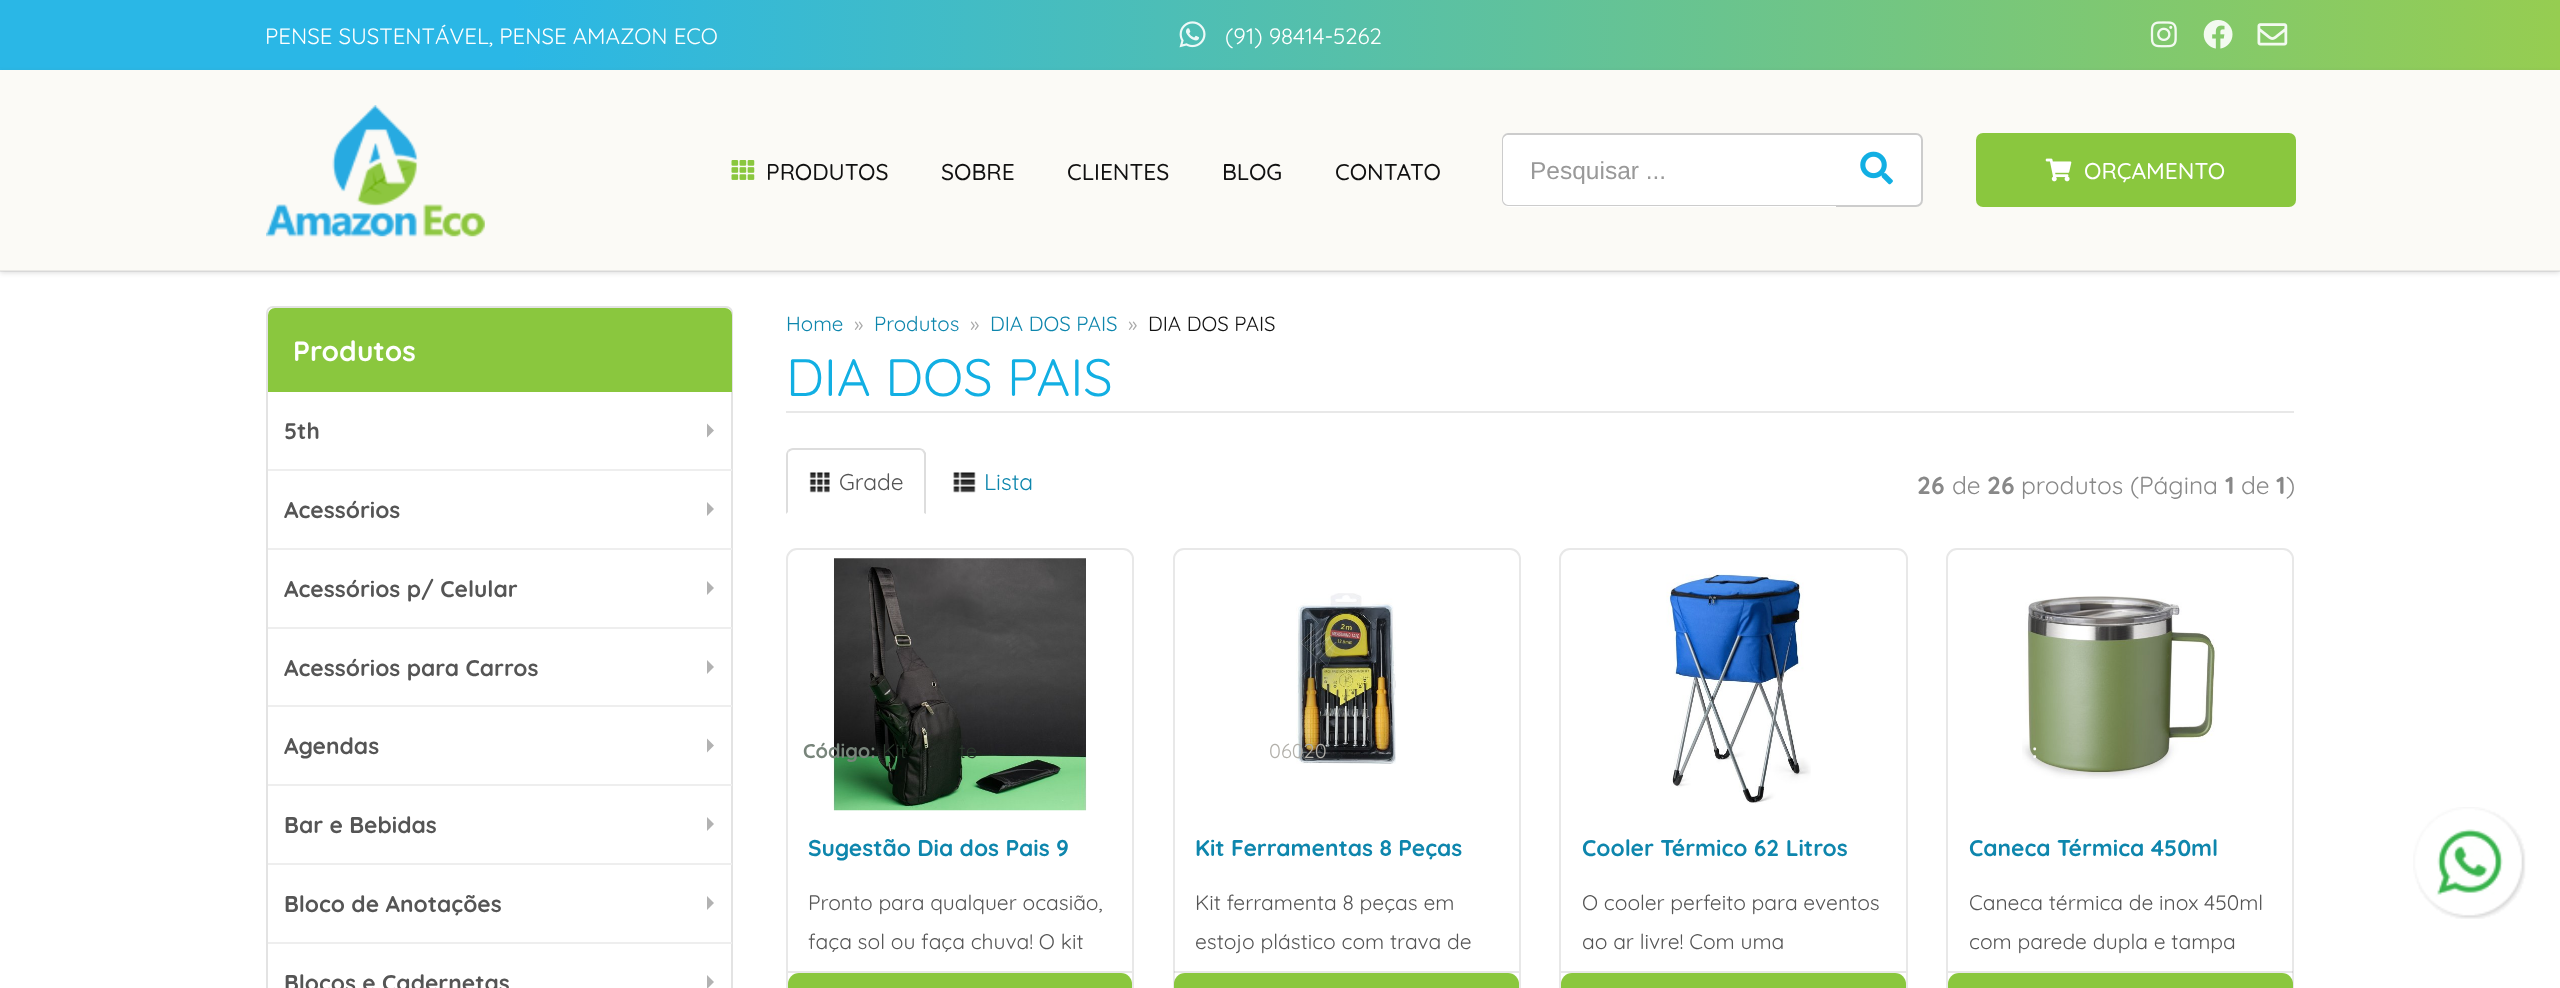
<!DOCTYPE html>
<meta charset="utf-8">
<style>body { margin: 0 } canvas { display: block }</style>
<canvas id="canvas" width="2560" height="988"></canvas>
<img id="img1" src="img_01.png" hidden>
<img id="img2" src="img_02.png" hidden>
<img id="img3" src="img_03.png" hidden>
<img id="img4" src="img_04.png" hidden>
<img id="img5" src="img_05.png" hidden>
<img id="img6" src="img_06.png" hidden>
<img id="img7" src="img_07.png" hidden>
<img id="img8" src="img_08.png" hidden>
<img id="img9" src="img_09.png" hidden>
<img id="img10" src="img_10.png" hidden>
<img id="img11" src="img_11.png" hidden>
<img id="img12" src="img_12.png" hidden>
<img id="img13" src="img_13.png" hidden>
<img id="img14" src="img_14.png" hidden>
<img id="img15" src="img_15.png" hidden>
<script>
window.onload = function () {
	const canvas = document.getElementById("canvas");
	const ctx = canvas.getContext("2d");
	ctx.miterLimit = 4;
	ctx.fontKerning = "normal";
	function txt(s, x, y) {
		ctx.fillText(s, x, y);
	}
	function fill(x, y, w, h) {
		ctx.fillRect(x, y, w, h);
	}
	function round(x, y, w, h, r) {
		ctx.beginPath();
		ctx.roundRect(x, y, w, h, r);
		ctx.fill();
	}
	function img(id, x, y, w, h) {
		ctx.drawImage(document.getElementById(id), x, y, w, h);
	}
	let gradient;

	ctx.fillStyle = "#FFFFFF";
	fill(0, 0, 2560, 988);
	gradient = ctx.createLinearGradient(0, 35, 2560, 35);
	gradient.addColorStop(0.2, "#2AB7E6");
	gradient.addColorStop(1, "#96CD51");
	ctx.fillStyle = gradient;
	fill(0, 0, 2560, 70);
	img("img1", 1179, 21, 27, 27);
	img("img2", 2150, 21, 27, 27);
	img("img3", 2203, 20, 30, 29);
	img("img4", 2257, 23, 31, 23);
	ctx.fillStyle = "rgba(90, 90, 90, 0.2)";
	ctx.filter = "blur(2.5px)";
	ctx.beginPath();
	ctx.rect(0, 72, 2560, 201);
	ctx.fill();
	ctx.filter = "none";
	ctx.fillStyle = "#FBFAF6";
	fill(0, 70, 2560, 201);
	ctx.fillStyle = "rgba(90, 90, 90, 0.1)";
	fill(0, 270, 2560, 2);
	img("img5", 266, 105, 219, 132);
	img("img6", 731, 160, 24, 20);
	ctx.fillStyle = "#FFFFFF";
	ctx.beginPath();
	ctx.roundRect(1835, 134, 87, 72, [0, 6, 6, 0]);
	ctx.fill();
	ctx.strokeStyle = "#CCCCCC";
	ctx.lineWidth = 2;
	ctx.stroke();
	ctx.beginPath();
	ctx.roundRect(1502, 133, 334, 74, [7, 0, 0, 7]);
	ctx.fill();
	ctx.fillStyle = "#CCCCCC";
	ctx.beginPath();
	ctx.moveTo(1508, 133);
	ctx.lineTo(1836, 133);
	ctx.lineTo(1836, 206);
	ctx.lineTo(1508, 206);
	ctx.bezierCurveTo(1505, 206, 1502, 203, 1502, 200);
	ctx.lineTo(1502, 140);
	ctx.bezierCurveTo(1502, 136, 1505, 133, 1508, 133);
	ctx.closePath();
	ctx.moveTo(1508, 135);
	ctx.lineTo(1836, 135);
	ctx.lineTo(1836, 205);
	ctx.lineTo(1508, 205);
	ctx.bezierCurveTo(1506, 205, 1503, 202, 1503, 200);
	ctx.lineTo(1503, 140);
	ctx.bezierCurveTo(1503, 137, 1506, 135, 1508, 135);
	ctx.closePath();
	ctx.fill("evenodd");
	img("img7", 1860, 151, 33, 34);
	ctx.fillStyle = "#8AC73E";
	round(1976, 133, 320, 74, 7);
	img("img8", 2045, 158, 27, 24);
	ctx.beginPath();
	ctx.moveTo(273, 307);
	ctx.lineTo(726, 307);
	ctx.bezierCurveTo(729.5, 307, 732, 309.5, 732, 313);
	ctx.lineTo(732, 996);
	ctx.lineTo(267, 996);
	ctx.lineTo(267, 313);
	ctx.bezierCurveTo(267, 309.5, 269.5, 307, 273, 307);
	ctx.closePath();
	ctx.strokeStyle = "#E3E3E3";
	ctx.stroke();
	ctx.beginPath();
	ctx.roundRect(268, 308, 464, 84, [7, 7, 0, 0]);
	ctx.fill();
	ctx.fillStyle = "#EEEEEE";
	fill(268, 469, 464, 2);
	ctx.fillStyle = "#B2B2B2";
	ctx.beginPath();
	ctx.moveTo(707, 437.5);
	ctx.lineTo(707, 423.5);
	ctx.lineTo(714, 430.5);
	ctx.closePath();
	ctx.fill();
	ctx.fillStyle = "#EEEEEE";
	fill(268, 548, 464, 2);
	ctx.fillStyle = "#B2B2B2";
	ctx.beginPath();
	ctx.moveTo(707, 516);
	ctx.lineTo(707, 502);
	ctx.lineTo(714, 509);
	ctx.closePath();
	ctx.fill();
	ctx.fillStyle = "#EEEEEE";
	fill(268, 627, 464, 2);
	ctx.fillStyle = "#B2B2B2";
	ctx.beginPath();
	ctx.moveTo(707, 595);
	ctx.lineTo(707, 581);
	ctx.lineTo(714, 588);
	ctx.closePath();
	ctx.fill();
	ctx.fillStyle = "#EEEEEE";
	fill(268, 705, 464, 2);
	ctx.fillStyle = "#B2B2B2";
	ctx.beginPath();
	ctx.moveTo(707, 674);
	ctx.lineTo(707, 660);
	ctx.lineTo(714, 667);
	ctx.closePath();
	ctx.fill();
	ctx.fillStyle = "#EEEEEE";
	fill(268, 784, 464, 2);
	ctx.fillStyle = "#B2B2B2";
	ctx.beginPath();
	ctx.moveTo(707, 752.5);
	ctx.lineTo(707, 738.5);
	ctx.lineTo(714, 745.5);
	ctx.closePath();
	ctx.fill();
	ctx.fillStyle = "#EEEEEE";
	fill(268, 863, 464, 2);
	ctx.fillStyle = "#B2B2B2";
	ctx.beginPath();
	ctx.moveTo(707, 831);
	ctx.lineTo(707, 817);
	ctx.lineTo(714, 824);
	ctx.closePath();
	ctx.fill();
	ctx.fillStyle = "#EEEEEE";
	fill(268, 942, 464, 2);
	ctx.fillStyle = "#B2B2B2";
	ctx.beginPath();
	ctx.moveTo(707, 910);
	ctx.lineTo(707, 896);
	ctx.lineTo(714, 903);
	ctx.closePath();
	ctx.fill();
	ctx.beginPath();
	ctx.moveTo(707, 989);
	ctx.lineTo(707, 975);
	ctx.lineTo(714, 982);
	ctx.closePath();
	ctx.fill();
	ctx.fillStyle = "#E8E8E8";
	fill(786, 411, 1508, 2);
	ctx.fillStyle = "#DDDDDD";
	ctx.beginPath();
	ctx.moveTo(793, 448);
	ctx.bezierCurveTo(791, 448, 789, 449, 788, 450);
	ctx.lineTo(789, 452);
	ctx.bezierCurveTo(790, 451, 791, 450, 793, 450);
	ctx.lineTo(919, 450);
	ctx.bezierCurveTo(920, 450, 922, 450, 922, 451);
	ctx.lineTo(924, 450);
	ctx.bezierCurveTo(923, 449, 921, 448, 919, 448);
	ctx.closePath();
	ctx.fill();
	ctx.beginPath();
	ctx.moveTo(926, 514);
	ctx.lineTo(924, 513);
	ctx.lineTo(924, 455);
	ctx.bezierCurveTo(924, 453, 923, 452, 922, 451);
	ctx.lineTo(924, 450);
	ctx.lineTo(926, 453);
	ctx.closePath();
	ctx.fill();
	ctx.beginPath();
	ctx.moveTo(788, 450);
	ctx.bezierCurveTo(787, 451, 786, 453, 786, 455);
	ctx.lineTo(786, 514);
	ctx.lineTo(788, 512);
	ctx.lineTo(788, 455);
	ctx.bezierCurveTo(788, 454, 788, 452, 789, 452);
	ctx.closePath();
	ctx.fill();
	img("img9", 809, 472, 21, 21);
	img("img10", 953, 472, 23, 21);
	ctx.beginPath();
	ctx.roundRect(787, 549, 346, 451, 10);
	ctx.strokeStyle = "#E8E8E8";
	ctx.stroke();
	img("img11", 831, 558, 256, 253);
	ctx.fillStyle = "#E8E8E8";
	fill(788, 971, 344, 2);
	ctx.fillStyle = "#8AC73E";
	round(788, 973, 344, 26, 11);
	ctx.beginPath();
	ctx.roundRect(1174, 549, 346, 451, 10);
	ctx.stroke();
	img("img12", 1296, 593, 100, 171);
	ctx.fillStyle = "rgba(0, 0, 0, 0.09)";
	fill(1174, 971, 345, 2);
	ctx.fillStyle = "#8AC73E";
	round(1174, 973, 345, 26, 11);
	ctx.beginPath();
	ctx.roundRect(1560, 549, 347, 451, 10);
	ctx.stroke();
	img("img13", 1666, 574, 145, 230);
	ctx.fillStyle = "#E8E8E8";
	fill(1561, 971, 345, 2);
	ctx.fillStyle = "#8AC73E";
	round(1561, 973, 345, 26, 11);
	ctx.beginPath();
	ctx.roundRect(1947, 549, 346, 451, 10);
	ctx.stroke();
	img("img14", 2022, 596, 195, 183);
	ctx.fillStyle = "rgba(0, 0, 0, 0.09)";
	fill(1948, 971, 345, 2);
	ctx.fillStyle = "#8AC73E";
	round(1948, 973, 345, 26, 11);
	img("img15", 2413, 807, 113, 112);
	ctx.font = "22.3px Quicksand";
	ctx.fillStyle = "#FFFFFF";
	txt("PENSE SUSTENTÁVEL, PENSE AMAZON ECO", 265, 44);
	txt("(91) 98414-5262", 1225, 44);
	ctx.font = "500 22.75px Quicksand";
	ctx.fillStyle = "#111111";
	txt("PRODUTOS", 766, 180);
	txt("SOBRE", 941, 180);
	txt("CLIENTES", 1067, 180);
	txt("BLOG", 1222, 180);
	txt("CONTATO", 1335, 180);
	ctx.font = "24.5px Liberation Sans";
	ctx.fillStyle = "#999999";
	txt("Pesquisar ...", 1530, 179);
	ctx.font = "500 22.75px Quicksand";
	ctx.fillStyle = "#FFFFFF";
	txt("ORÇAMENTO", 2084, 179);
	ctx.font = "bold 28px Quicksand";
	txt("Produtos", 293, 361);
	ctx.font = "bold 22.75px Quicksand";
	ctx.fillStyle = "#555555";
	txt("5th", 284, 439);
	txt("Acessórios", 284, 518);
	txt("Acessórios p/ Celular", 284, 597);
	txt("Acessórios para Carros", 284, 676);
	txt("Agendas", 284, 754);
	txt("Bar e Bebidas", 284, 833);
	txt("Bloco de Anotações", 284, 912);
	txt("Blocos e Cadernetas", 284, 991);
	ctx.font = "20.5px Quicksand";
	ctx.fillStyle = "#0E86AD";
	txt("Home", 786, 331);
	ctx.fillStyle = "#AAAAAA";
	txt("»", 854, 331);
	ctx.fillStyle = "#0E86AD";
	txt("Produtos", 874, 331);
	ctx.fillStyle = "#AAAAAA";
	txt("»", 970, 331);
	ctx.fillStyle = "#0E86AD";
	txt("DIA DOS PAIS", 990, 331);
	ctx.fillStyle = "#AAAAAA";
	txt("»", 1128, 331);
	ctx.fillStyle = "#111111";
	txt("DIA DOS PAIS", 1148, 331);
	ctx.font = "52.5px Quicksand";
	ctx.fillStyle = "#12AFE3";
	txt("DIA DOS PAIS", 786, 396);
	ctx.font = "22.75px Quicksand";
	ctx.fillStyle = "#555555";
	txt("Grade", 839, 490);
	ctx.fillStyle = "#0E86AD";
	txt("Lista", 984, 490);
	ctx.font = "bold 24.5px Quicksand";
	ctx.fillStyle = "#888888";
	txt("26", 1917, 494);
	ctx.font = "24.5px Quicksand";
	txt("de", 1952, 494);
	ctx.font = "bold 24.5px Quicksand";
	txt("26", 1987, 494);
	ctx.font = "24.5px Quicksand";
	txt("produtos (Página", 2021, 494);
	ctx.font = "bold 24.5px Quicksand";
	txt("1", 2225, 494);
	ctx.font = "24.5px Quicksand";
	txt("de", 2241, 494);
	ctx.font = "bold 24.5px Quicksand";
	txt("1", 2276, 494);
	ctx.font = "24.5px Quicksand";
	txt(")", 2286, 494);
	ctx.font = "bold 20px Quicksand";
	ctx.fillStyle = "#78857B";
	txt("Código:", 803, 758);
	ctx.font = "20px Quicksand";
	ctx.fillStyle = "#29372B";
	txt("Kit", 882, 758);
	txt("te", 959, 758);
	ctx.font = "bold 22.75px Quicksand";
	ctx.fillStyle = "#0E86AD";
	txt("Sugestão Dia dos Pais 9", 808, 856);
	ctx.font = "21px Quicksand";
	ctx.fillStyle = "#555555";
	txt("Pronto para qualquer ocasião,", 808, 910);
	txt("faça sol ou faça chuva! O kit", 808, 949);
	ctx.font = "20px Quicksand";
	ctx.fillStyle = "#B2B0AA";
	txt("06020", 1269, 758);
	ctx.font = "bold 22.75px Quicksand";
	ctx.fillStyle = "#0E86AD";
	txt("Kit Ferramentas 8 Peças", 1195, 856);
	ctx.font = "21px Quicksand";
	ctx.fillStyle = "#555555";
	txt("Kit ferramenta 8 peças em", 1195, 910);
	txt("estojo plástico com trava de", 1195, 949);
	ctx.font = "bold 22.75px Quicksand";
	ctx.fillStyle = "#0E86AD";
	txt("Cooler Térmico 62 Litros", 1582, 856);
	ctx.font = "21px Quicksand";
	ctx.fillStyle = "#555555";
	txt("O cooler perfeito para eventos", 1582, 910);
	txt("ao ar livre! Com uma", 1582, 949);
	ctx.font = "bold 20px Quicksand";
	ctx.fillStyle = "#FAFAF9";
	txt(":", 2032, 758);
	ctx.font = "bold 22.75px Quicksand";
	ctx.fillStyle = "#0E86AD";
	txt("Caneca Térmica 450ml", 1969, 856);
	ctx.font = "21px Quicksand";
	ctx.fillStyle = "#555555";
	txt("Caneca térmica de inox 450ml", 1969, 910);
	txt("com parede dupla e tampa", 1969, 949);
};
</script>
